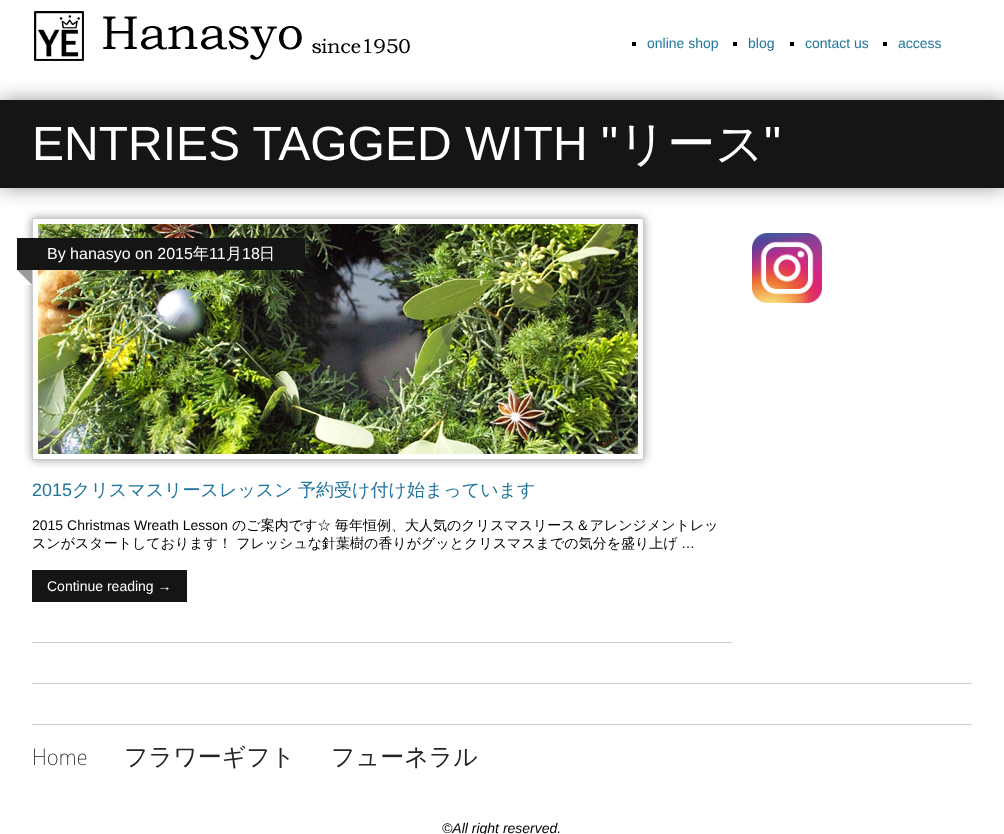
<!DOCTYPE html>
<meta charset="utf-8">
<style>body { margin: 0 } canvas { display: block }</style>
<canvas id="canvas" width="1004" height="834"></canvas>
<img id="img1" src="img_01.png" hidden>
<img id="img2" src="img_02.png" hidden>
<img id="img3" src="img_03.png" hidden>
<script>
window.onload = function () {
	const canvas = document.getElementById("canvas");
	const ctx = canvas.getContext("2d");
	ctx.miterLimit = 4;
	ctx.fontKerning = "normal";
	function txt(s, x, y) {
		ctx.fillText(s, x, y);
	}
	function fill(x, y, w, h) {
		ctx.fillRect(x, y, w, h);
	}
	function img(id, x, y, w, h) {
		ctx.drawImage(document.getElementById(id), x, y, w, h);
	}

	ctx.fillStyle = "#FFFFFF";
	fill(0, 0, 1004, 834);
	img("img1", 34, 11, 376, 50);
	ctx.fillStyle = "#000000";
	fill(632, 42, 4, 4);
	fill(733, 42, 4, 4);
	fill(790, 42, 4, 4);
	fill(883, 42, 4, 4);
	ctx.fillStyle = "#999999";
	ctx.filter = "blur(10px)";
	ctx.beginPath();
	ctx.rect(0, 100, 1004, 88);
	ctx.fill();
	ctx.filter = "none";
	ctx.fillStyle = "#151515";
	fill(0, 100, 1004, 88);
	ctx.fillStyle = "#CCCCCC";
	fill(32, 683, 940, 1);
	fill(32, 642, 700, 1);
	ctx.save();
	ctx.beginPath();
	ctx.moveTo(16, 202);
	ctx.lineTo(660, 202);
	ctx.lineTo(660, 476);
	ctx.lineTo(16, 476);
	ctx.closePath();
	ctx.moveTo(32, 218);
	ctx.lineTo(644, 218);
	ctx.lineTo(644, 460);
	ctx.lineTo(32, 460);
	ctx.closePath();
	ctx.clip("evenodd");
	ctx.fillStyle = "#999999";
	ctx.filter = "blur(5px)";
	ctx.beginPath();
	ctx.rect(32, 218, 612, 242);
	ctx.fill();
	ctx.filter = "none";
	ctx.restore();
	ctx.strokeStyle = "#CCCCCC";
	ctx.strokeRect(32.5, 218.5, 611, 241);
	img("img2", 38, 224, 600, 230);
	ctx.fillStyle = "#151515";
	fill(17, 238, 288, 32);
	ctx.fillStyle = "#999999";
	ctx.beginPath();
	ctx.moveTo(32, 270);
	ctx.lineTo(32, 285);
	ctx.lineTo(17, 270);
	ctx.closePath();
	ctx.fill();
	ctx.fillStyle = "#FFFFFF";
	ctx.beginPath();
	ctx.moveTo(32, 285);
	ctx.lineTo(17, 285);
	ctx.lineTo(17, 270);
	ctx.closePath();
	ctx.fill();
	ctx.fillStyle = "#151515";
	fill(32, 570, 155, 32);
	img("img3", 752, 233, 70, 70);
	ctx.fillStyle = "#CCCCCC";
	fill(32, 724, 940, 1);
	ctx.font = "14px Liberation Sans";
	ctx.fillStyle = "#21759B";
	txt("online shop", 647, 48);
	txt("blog", 748, 48);
	txt("contact us", 805, 48);
	txt("access", 898, 48);
	ctx.font = "48px Liberation Sans";
	ctx.fillStyle = "#FFFFFF";
	txt("ENTRIES TAGGED WITH \"", 32, 160);
	ctx.font = "500 48px WenQuanYi Zen Hei";
	txt("リース", 618, 160);
	ctx.font = "48px Liberation Sans";
	txt("\"", 764, 160);
	ctx.font = "16px Liberation Sans";
	txt("By hanasyo on 2015", 47, 259);
	ctx.font = "500 16px WenQuanYi Zen Hei";
	txt("年", 193, 259);
	ctx.font = "16px Liberation Sans";
	txt("11", 209, 259);
	ctx.font = "500 16px WenQuanYi Zen Hei";
	txt("月", 226, 259);
	ctx.font = "16px Liberation Sans";
	txt("18", 242, 259);
	ctx.font = "500 16px WenQuanYi Zen Hei";
	txt("日", 259, 259);
	ctx.font = "18px Liberation Sans";
	ctx.fillStyle = "#21759B";
	txt("2015", 32, 496);
	ctx.font = "500 18px WenQuanYi Zen Hei";
	txt("クリスマスリースレッスン 予約受け付け始まっています", 72, 496);
	ctx.font = "14px Liberation Sans";
	ctx.fillStyle = "#000000";
	txt("2015 Christmas Wreath Lesson", 32, 530);
	ctx.font = "500 14px WenQuanYi Zen Hei";
	txt("のご案内です☆", 232, 530);
	txt("毎年恒例、大人気のクリスマスリース＆アレンジメントレッ", 335, 530);
	txt("スンがスタートしております！ フレッシュな針葉樹の香りがグッとクリスマスまでの気分を盛り上げ", 32, 548);
	ctx.font = "14px Liberation Sans";
	txt("…", 681, 548);
	ctx.fillStyle = "#FFFFFF";
	txt("Continue reading →", 47, 591);
	ctx.font = "300 24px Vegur";
	ctx.fillStyle = "#252525";
	txt("Home", 32, 765);
	ctx.font = "500 24px WenQuanYi Zen Hei";
	txt("フラワーギフト", 124, 765);
	txt("フューネラル", 331, 765);
	ctx.font = "italic 14px Liberation Sans";
	ctx.fillStyle = "#000000";
	txt("©All right reserved.", 442, 833);
};
</script>
